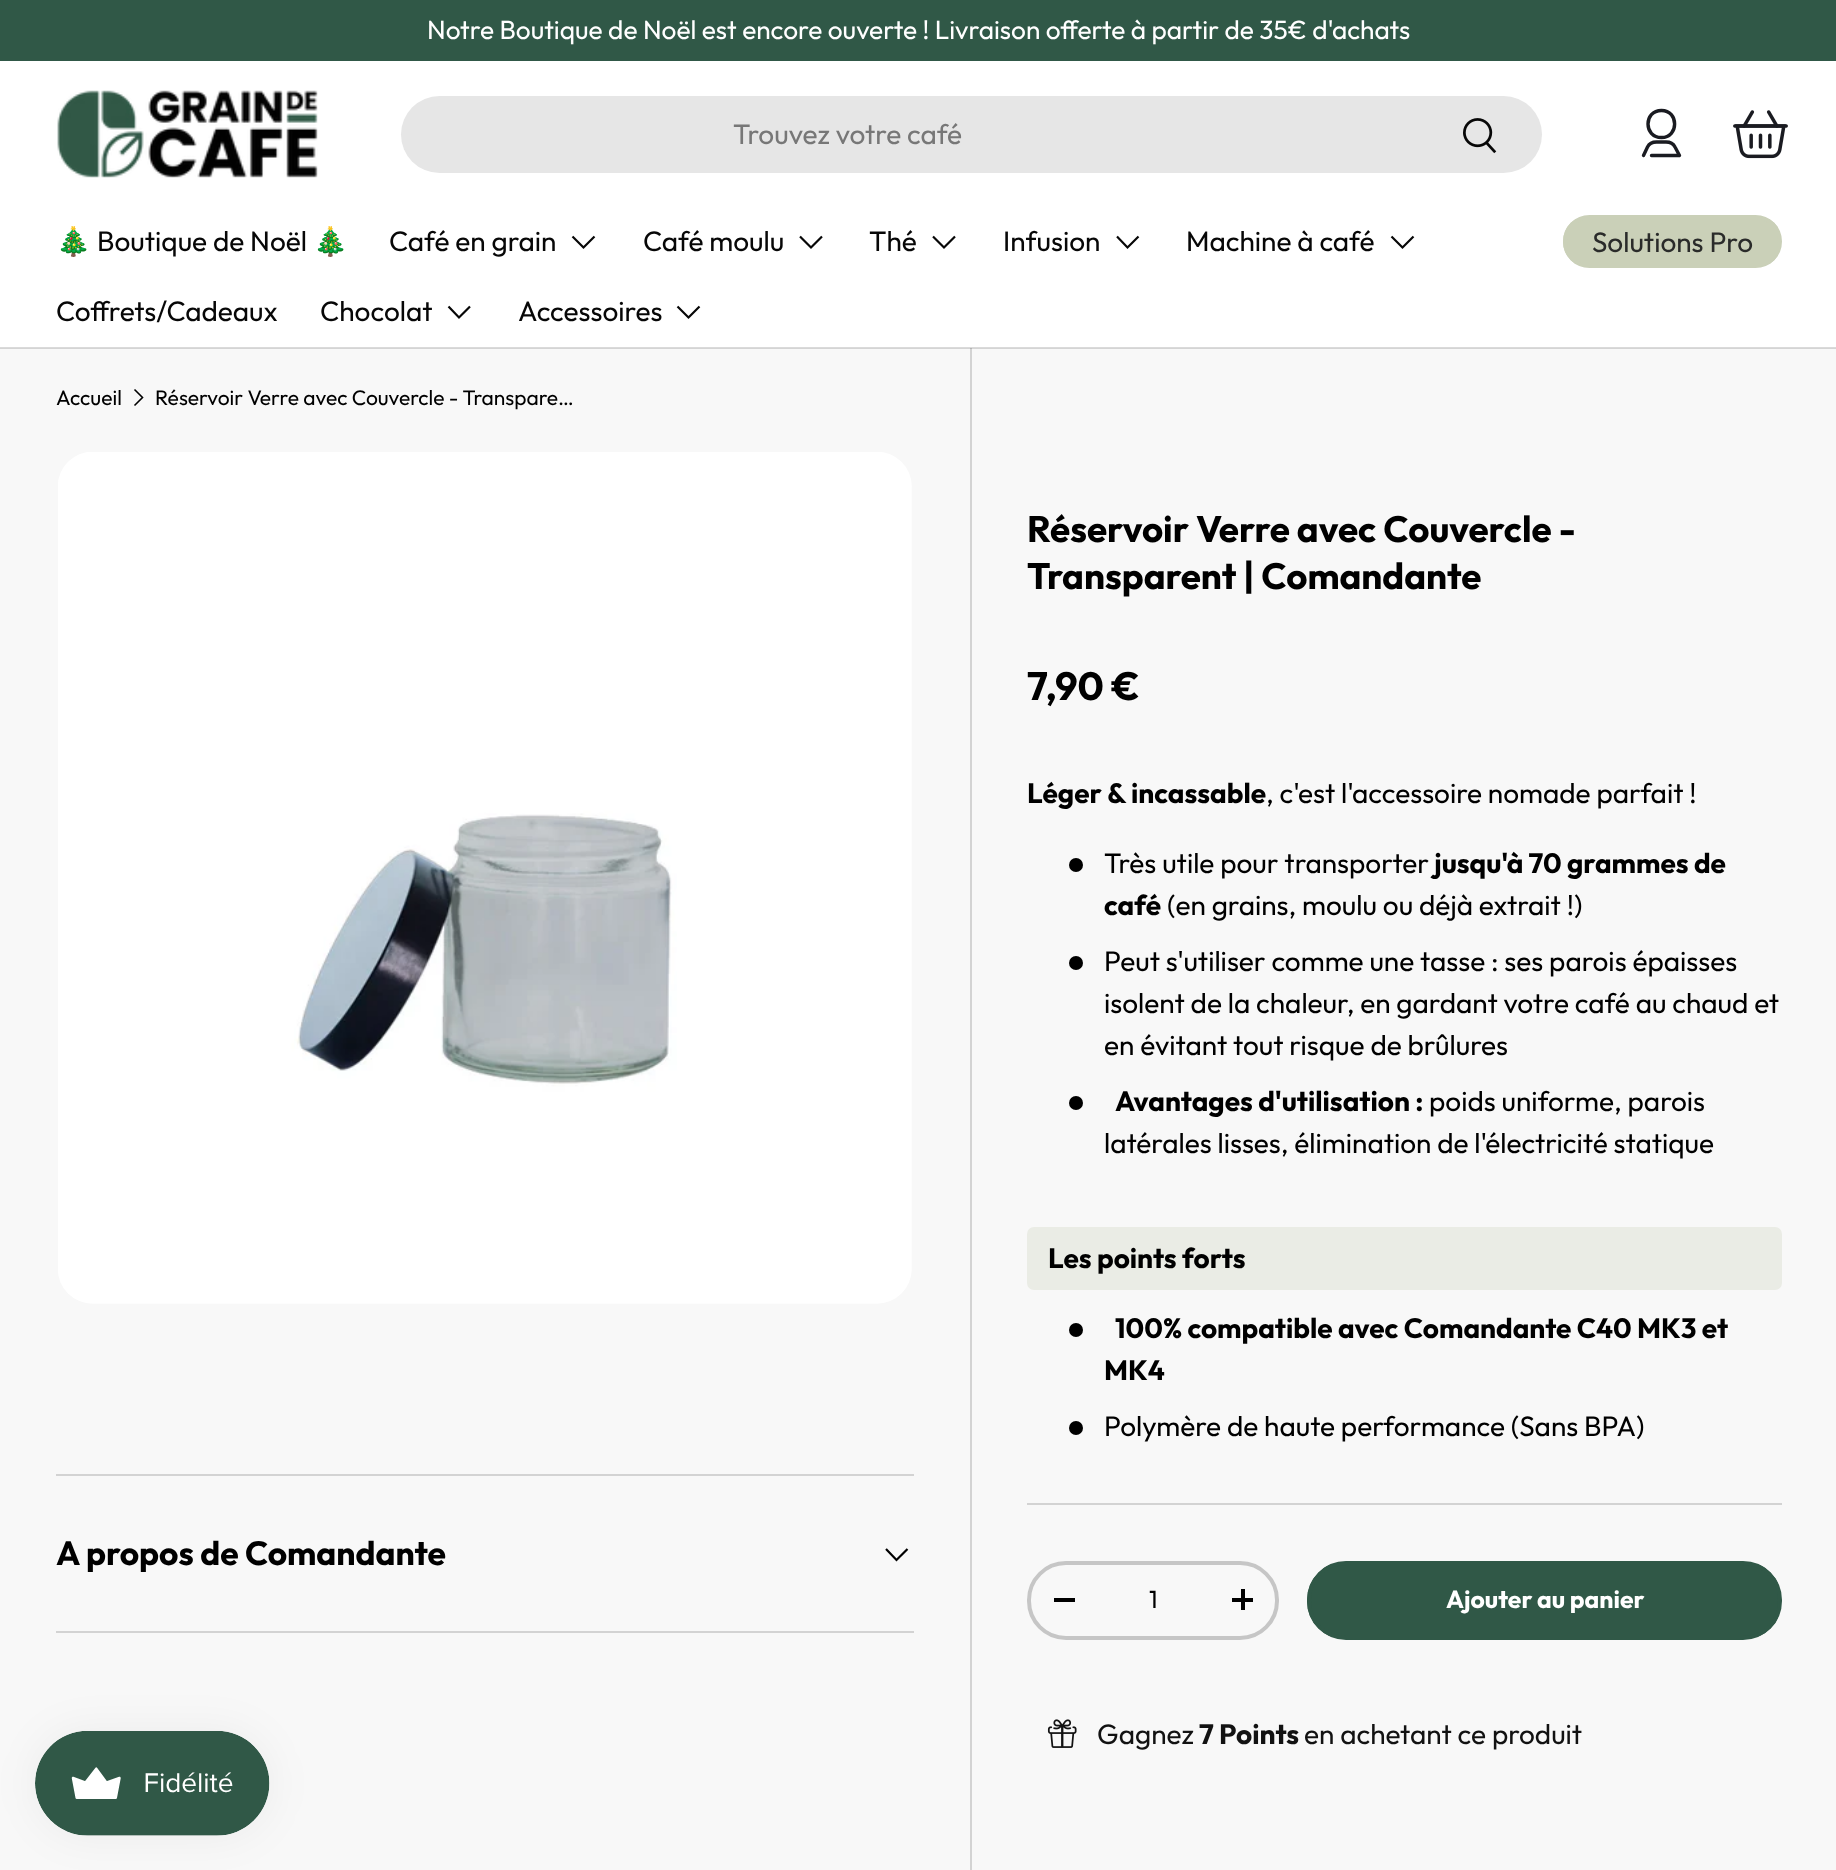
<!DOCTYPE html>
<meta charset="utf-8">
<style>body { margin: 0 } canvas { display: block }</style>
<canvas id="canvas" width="1836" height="1870"></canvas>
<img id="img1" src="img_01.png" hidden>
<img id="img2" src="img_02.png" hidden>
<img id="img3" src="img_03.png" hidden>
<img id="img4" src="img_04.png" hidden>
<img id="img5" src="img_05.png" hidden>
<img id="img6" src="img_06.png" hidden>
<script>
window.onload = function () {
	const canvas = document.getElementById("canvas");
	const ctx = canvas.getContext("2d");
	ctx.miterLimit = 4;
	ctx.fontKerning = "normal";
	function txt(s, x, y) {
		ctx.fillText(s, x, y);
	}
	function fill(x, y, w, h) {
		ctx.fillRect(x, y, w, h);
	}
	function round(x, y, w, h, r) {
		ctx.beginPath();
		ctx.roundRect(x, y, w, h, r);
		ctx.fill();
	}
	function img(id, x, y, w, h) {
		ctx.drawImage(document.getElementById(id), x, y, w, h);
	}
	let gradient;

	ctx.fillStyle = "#F8F8F8";
	fill(0, 0, 1836, 1870);
	ctx.fillStyle = "#D4D4D4";
	fill(0, 348, 1836, 1);
	ctx.fillStyle = "#305847";
	fill(0, 0, 1836, 61);
	ctx.fillStyle = "#FFFFFF";
	fill(0, 61, 1836, 286);
	ctx.fillStyle = "#DADADA";
	fill(0, 347, 1836, 1);
	img("img1", 57, 90, 261, 88);
	ctx.fillStyle = "#E6E6E6";
	round(401, 96, 1141, 77, 38.5);
	img("img2", 1463, 118, 34, 36);
	ctx.beginPath();
	ctx.moveTo(1661.5, 137.5);
	ctx.bezierCurveTo(1679, 137.5, 1679, 110.5, 1661.5, 110.5);
	ctx.bezierCurveTo(1643.5, 110.5, 1643.5, 137.5, 1661.5, 137.5);
	ctx.closePath();
	ctx.moveTo(1643.5, 155.5);
	ctx.lineTo(1647.5, 147);
	ctx.bezierCurveTo(1649, 144, 1652.5, 142, 1656.5, 142);
	ctx.lineTo(1666, 142);
	ctx.bezierCurveTo(1670, 142, 1673.5, 144, 1675, 147);
	ctx.lineTo(1679.5, 155.5);
	ctx.lineTo(1651.5, 155.5);
	ctx.strokeStyle = "#1A1B21";
	ctx.lineWidth = 3.4;
	ctx.lineCap = "round";
	ctx.lineJoin = "round";
	ctx.stroke();
	img("img3", 1733, 110, 55, 49);
	ctx.beginPath();
	ctx.moveTo(594.5, 236.5);
	ctx.lineTo(583.5, 247.5);
	ctx.lineTo(572.5, 236.5);
	ctx.strokeStyle = "#070707";
	ctx.lineWidth = 2.2;
	ctx.lineCap = "butt";
	ctx.lineJoin = "miter";
	ctx.stroke();
	ctx.beginPath();
	ctx.moveTo(822, 236.5);
	ctx.lineTo(811, 247.5);
	ctx.lineTo(800, 236.5);
	ctx.stroke();
	ctx.beginPath();
	ctx.moveTo(955, 236.5);
	ctx.lineTo(944, 247.5);
	ctx.lineTo(933, 236.5);
	ctx.stroke();
	ctx.beginPath();
	ctx.moveTo(1138.5, 236.5);
	ctx.lineTo(1127.5, 247.5);
	ctx.lineTo(1117, 236.5);
	ctx.stroke();
	ctx.beginPath();
	ctx.moveTo(1413.5, 236.5);
	ctx.lineTo(1402.5, 247.5);
	ctx.lineTo(1391.5, 236.5);
	ctx.stroke();
	ctx.beginPath();
	ctx.moveTo(470, 306.5);
	ctx.lineTo(459, 317.5);
	ctx.lineTo(448.5, 306.5);
	ctx.stroke();
	ctx.beginPath();
	ctx.moveTo(699.5, 306.5);
	ctx.lineTo(688.5, 317.5);
	ctx.lineTo(677.5, 306.5);
	ctx.stroke();
	ctx.save();
	ctx.beginPath();
	ctx.roundRect(1563, 215, 219, 53, 26.5);
	ctx.clip();
	gradient = ctx.createLinearGradient(1156, 166, 1765, 317);
	gradient.addColorStop(0.6, "#B9BEAC");
	gradient.addColorStop(0.6, "#CAD0B8");
	gradient.addColorStop(1, "#CAD0B8");
	ctx.fillStyle = gradient;
	fill(1563, 219, 215, 45);
	ctx.restore();
	ctx.beginPath();
	ctx.roundRect(1565, 217, 215, 49, 24.5);
	ctx.strokeStyle = "#CAD0B8";
	ctx.lineWidth = 4;
	ctx.stroke();
	ctx.beginPath();
	ctx.moveTo(134.5, 389.5);
	ctx.lineTo(142.5, 397.5);
	ctx.lineTo(134.5, 405.5);
	ctx.strokeStyle = "#000000";
	ctx.lineWidth = 1.6;
	ctx.stroke();
	ctx.fillStyle = "#D3D3D3";
	fill(56, 1474, 858, 2);
	fill(56, 1631, 858, 2);
	ctx.beginPath();
	ctx.moveTo(907.5, 1549);
	ctx.lineTo(896.5, 1560);
	ctx.lineTo(886, 1549);
	ctx.lineWidth = 2.2;
	ctx.stroke();
	img("img4", 58, 452, 854, 852);
	fill(970, 348, 2, 1522);
	ctx.fillStyle = "#B4B4B4";
	fill(970, 348, 2, 1);
	ctx.fillStyle = "#000000";
	ctx.beginPath();
	ctx.arc(1076, 865, 7, 0, Math.PI * 2);
	ctx.fill();
	ctx.beginPath();
	ctx.arc(1076, 963, 7, 0, Math.PI * 2);
	ctx.fill();
	ctx.beginPath();
	ctx.arc(1076, 1103, 7, 0, Math.PI * 2);
	ctx.fill();
	ctx.fillStyle = "#EAECE5";
	round(1027, 1227, 755, 63, 7);
	ctx.fillStyle = "#000000";
	ctx.beginPath();
	ctx.arc(1076, 1330, 7, 0, Math.PI * 2);
	ctx.fill();
	ctx.beginPath();
	ctx.arc(1076, 1428, 7, 0, Math.PI * 2);
	ctx.fill();
	ctx.fillStyle = "#D3D3D3";
	fill(1027, 1503, 755, 2);
	ctx.beginPath();
	ctx.roundRect(1029, 1563, 248, 75, 37);
	ctx.strokeStyle = "#C6C6C6";
	ctx.lineWidth = 4;
	ctx.stroke();
	ctx.fillStyle = "#000000";
	fill(1054, 1598, 21, 4);
	fill(1232, 1598, 21, 4);
	fill(1241, 1589, 4, 21);
	ctx.save();
	ctx.beginPath();
	ctx.roundRect(1307, 1561, 475, 79, 39);
	ctx.clip();
	gradient = ctx.createLinearGradient(409, 1434, 1745, 1767);
	gradient.addColorStop(0.6, "#557A6B");
	gradient.addColorStop(0.6, "#305847");
	gradient.addColorStop(1, "#305847");
	ctx.fillStyle = gradient;
	fill(1307, 1565, 471, 71);
	ctx.restore();
	ctx.beginPath();
	ctx.roundRect(1309, 1563, 471, 75, 37);
	ctx.strokeStyle = "#305847";
	ctx.stroke();
	img("img5", 1047, 1719, 30, 29);
	ctx.fillStyle = "rgba(0, 0, 0, 0.05)";
	ctx.filter = "blur(22px)";
	ctx.beginPath();
	ctx.roundRect(35, 1731, 235, 105, 52.5);
	ctx.fill();
	ctx.filter = "none";
	img("img6", 35, 1731, 235, 105);
	ctx.font = "26.25px Outfit";
	ctx.fillStyle = "#FFFFFF";
	txt("Notre Boutique de Noël est encore ouverte ! Livraison offerte à partir de 35€ d'achats", 427, 39);
	ctx.font = "28px Outfit";
	ctx.fillStyle = "#777777";
	txt("Trouvez votre café", 733, 144);
	ctx.font = "28px Noto Color Emoji";
	ctx.fillStyle = "#070707";
	txt("🎄", 56, 251);
	ctx.font = "28px Outfit";
	txt("Boutique de Noël", 97, 251);
	ctx.font = "28px Noto Color Emoji";
	txt("🎄", 313, 251);
	ctx.font = "28px Outfit";
	txt("Café en grain", 389, 251);
	txt("Café moulu", 643, 251);
	txt("Thé", 869, 251);
	txt("Infusion", 1003, 251);
	txt("Machine à café", 1186, 251);
	txt("Coffrets/Cadeaux", 56, 321);
	txt("Chocolat", 320, 321);
	txt("Accessoires", 518, 321);
	ctx.fillStyle = "#2A2B2A";
	txt("Solutions Pro", 1592, 252);
	ctx.font = "21px Outfit";
	ctx.fillStyle = "#000000";
	txt("Accueil", 56, 405);
	txt("Réservoir Verre avec Couvercle - Transpare…", 155, 405);
	ctx.font = "bold 33.6px Outfit";
	txt("A propos de Comandante", 56, 1565);
	ctx.font = "bold 36.75px Outfit";
	txt("Réservoir Verre avec Couvercle -", 1027, 542);
	txt("Transparent | Comandante", 1027, 589);
	ctx.font = "bold 39.5px Outfit";
	txt("7,90 €", 1027, 700);
	ctx.font = "bold 28px Outfit";
	txt("Léger & incassable", 1027, 803);
	ctx.font = "28px Outfit";
	txt(", c'est l'accessoire nomade parfait !", 1266, 803);
	txt("Très utile pour transporter", 1104, 873);
	ctx.font = "bold 28px Outfit";
	txt("jusqu'à 70 grammes de", 1434, 873);
	txt("café", 1104, 915);
	ctx.font = "28px Outfit";
	txt("(en grains, moulu ou déjà extrait !)", 1167, 915);
	txt("Peut s'utiliser comme une tasse : ses parois épaisses", 1104, 971);
	txt("isolent de la chaleur, en gardant votre café au chaud et", 1104, 1013);
	txt("en évitant tout risque de brûlures", 1104, 1055);
	ctx.font = "bold 28px Outfit";
	txt("Avantages d'utilisation :", 1115, 1111);
	ctx.font = "28px Outfit";
	txt("poids uniforme, parois", 1429, 1111);
	txt("latérales lisses, élimination de l'électricité statique", 1104, 1153);
	ctx.font = "bold 28px Outfit";
	txt("Les points forts", 1048, 1268);
	txt("100% compatible avec Comandante C40 MK3 et", 1115, 1338);
	txt("MK4", 1104, 1380);
	ctx.font = "28px Outfit";
	txt("Polymère de haute performance (Sans BPA)", 1104, 1436);
	ctx.font = "24.75px Outfit";
	txt("1", 1149, 1608);
	ctx.font = "bold 24.75px Outfit";
	ctx.fillStyle = "#FFFFFF";
	txt("Ajouter au panier", 1446, 1608);
	ctx.font = "28px Outfit";
	ctx.fillStyle = "#121212";
	txt("Gagnez", 1097, 1744);
	ctx.font = "bold 28px Outfit";
	txt("7 Points", 1199, 1744);
	ctx.font = "28px Outfit";
	txt("en achetant ce produit", 1304, 1744);
};
</script>
